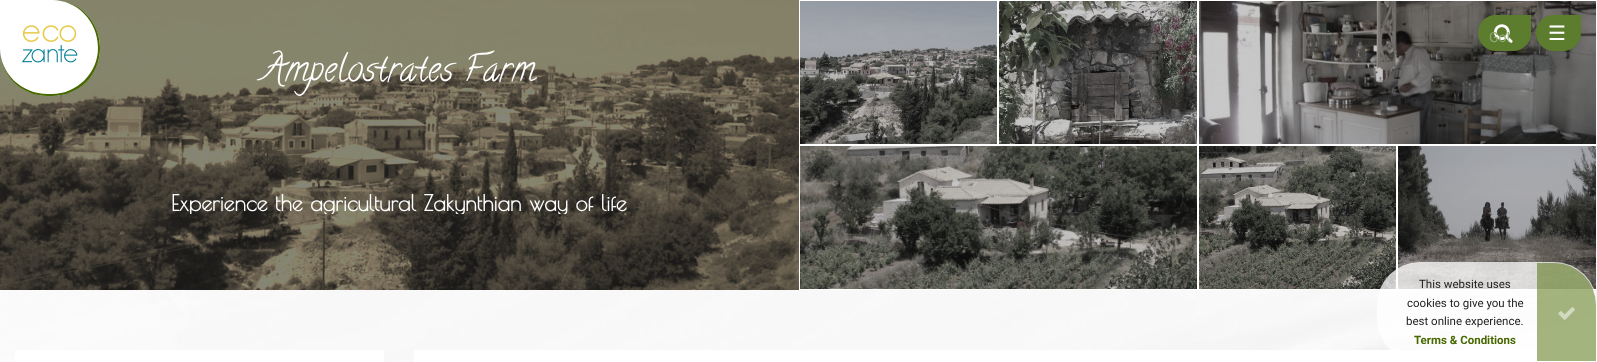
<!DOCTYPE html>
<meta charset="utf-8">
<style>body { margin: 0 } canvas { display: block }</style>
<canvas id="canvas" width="1597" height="362"></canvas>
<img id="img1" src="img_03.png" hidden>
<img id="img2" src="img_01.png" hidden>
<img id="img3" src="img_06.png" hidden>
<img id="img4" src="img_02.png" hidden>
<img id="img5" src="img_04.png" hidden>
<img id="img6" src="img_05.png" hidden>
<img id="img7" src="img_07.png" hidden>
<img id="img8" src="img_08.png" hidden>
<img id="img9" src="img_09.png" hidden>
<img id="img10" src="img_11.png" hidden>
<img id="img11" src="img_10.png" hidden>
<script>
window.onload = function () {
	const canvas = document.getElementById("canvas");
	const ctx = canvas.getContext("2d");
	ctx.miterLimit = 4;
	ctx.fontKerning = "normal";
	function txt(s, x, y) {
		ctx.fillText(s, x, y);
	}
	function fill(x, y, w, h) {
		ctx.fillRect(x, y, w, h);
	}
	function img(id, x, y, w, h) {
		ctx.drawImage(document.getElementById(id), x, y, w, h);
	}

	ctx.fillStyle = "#FFFFFF";
	fill(0, 0, 1597, 362);
	img("img1", 0, 0, 799, 290);
	ctx.beginPath();
	ctx.roundRect(0, 0, 100, 96, [0, 48, 48, 48]);
	ctx.fill();
	ctx.fillStyle = "#476900";
	ctx.beginPath();
	ctx.moveTo(0, 0);
	ctx.lineTo(52, 0);
	ctx.bezierCurveTo(79, 0, 100, 21, 100, 48);
	ctx.bezierCurveTo(100, 75, 79, 96, 52, 96);
	ctx.lineTo(48, 96);
	ctx.bezierCurveTo(21, 96, 0, 75, 0, 48);
	ctx.closePath();
	ctx.moveTo(0, 0);
	ctx.lineTo(52, 0);
	ctx.bezierCurveTo(77, 0, 98, 21, 98, 48);
	ctx.bezierCurveTo(98, 73, 77, 94, 52, 94);
	ctx.lineTo(48, 94);
	ctx.bezierCurveTo(21, 94, 0, 73, 0, 48);
	ctx.closePath();
	ctx.fill("evenodd");
	img("img2", 21, 25, 57, 38);
	img("img3", 1199, 1, 397, 143);
	ctx.fillStyle = "#333333";
	ctx.filter = "blur(5px)";
	ctx.beginPath();
	ctx.roundRect(1542, 21, 35, 26, 13);
	ctx.fill();
	ctx.filter = "none";
	ctx.fillStyle = "#5D7D2E";
	ctx.beginPath();
	ctx.roundRect(1536, 15, 45, 36, [18, 0, 18, 18]);
	ctx.fill();
	ctx.fillStyle = "#333333";
	ctx.filter = "blur(5px)";
	ctx.beginPath();
	ctx.roundRect(1484, 21, 43, 26, 13);
	ctx.fill();
	ctx.filter = "none";
	ctx.fillStyle = "#5D7D2E";
	ctx.beginPath();
	ctx.roundRect(1478, 15, 53, 36, [18, 0, 18, 18]);
	ctx.fill();
	img("img4", 1494, 24, 19, 19);
	img("img5", 800, 1, 197, 143);
	img("img6", 999, 1, 198, 143);
	img("img7", 800, 146, 397, 143);
	img("img8", 1199, 146, 197, 143);
	img("img9", 1398, 146, 198, 143);
	img("img10", 0, 290, 1597, 72);
	ctx.fillStyle = "rgba(255, 255, 255, 0.75)";
	fill(0, 290, 1597, 72);
	ctx.fillStyle = "#FFFFFF";
	fill(15, 350, 369, 12);
	fill(414, 350, 1168, 12);
	ctx.fillStyle = "rgba(255, 255, 255, 0.75)";
	ctx.beginPath();
	ctx.roundRect(1377, 262, 220, 100, [43, 43, 0, 43]);
	ctx.fill();
	ctx.fillStyle = "rgba(71, 105, 0, 0.5)";
	ctx.beginPath();
	ctx.roundRect(1537, 263, 59, 98, [0, 42, 0, 0]);
	ctx.fill();
	img("img11", 1558, 307, 17, 13);
	ctx.font = "14px Roboto";
	ctx.fillStyle = "#92A872";
	txt("Go!", 1489, 42);
	ctx.font = "20px DejaVu Sans";
	ctx.fillStyle = "#FFFFFF";
	txt("☰", 1548, 40);
	ctx.font = "36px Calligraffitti";
	txt("Ampelostrates Farm", 262, 80);
	ctx.save();
	ctx.beginPath();
	ctx.rect(171, 192, 456, 22);
	ctx.clip();
	ctx.font = "bold 22px Poiret One";
	txt("Experience the agricultural Zakynthian way of life", 171, 211);
	ctx.restore();
	ctx.font = "11.5px Roboto";
	ctx.fillStyle = "#222222";
	txt("This website uses", 1419, 288);
	txt("cookies to give you the", 1407, 307);
	txt("best online experience.", 1406, 325);
	ctx.font = "bold 11.5px Roboto";
	ctx.fillStyle = "#476900";
	txt("Terms & Conditions", 1414, 344);
};
</script>
